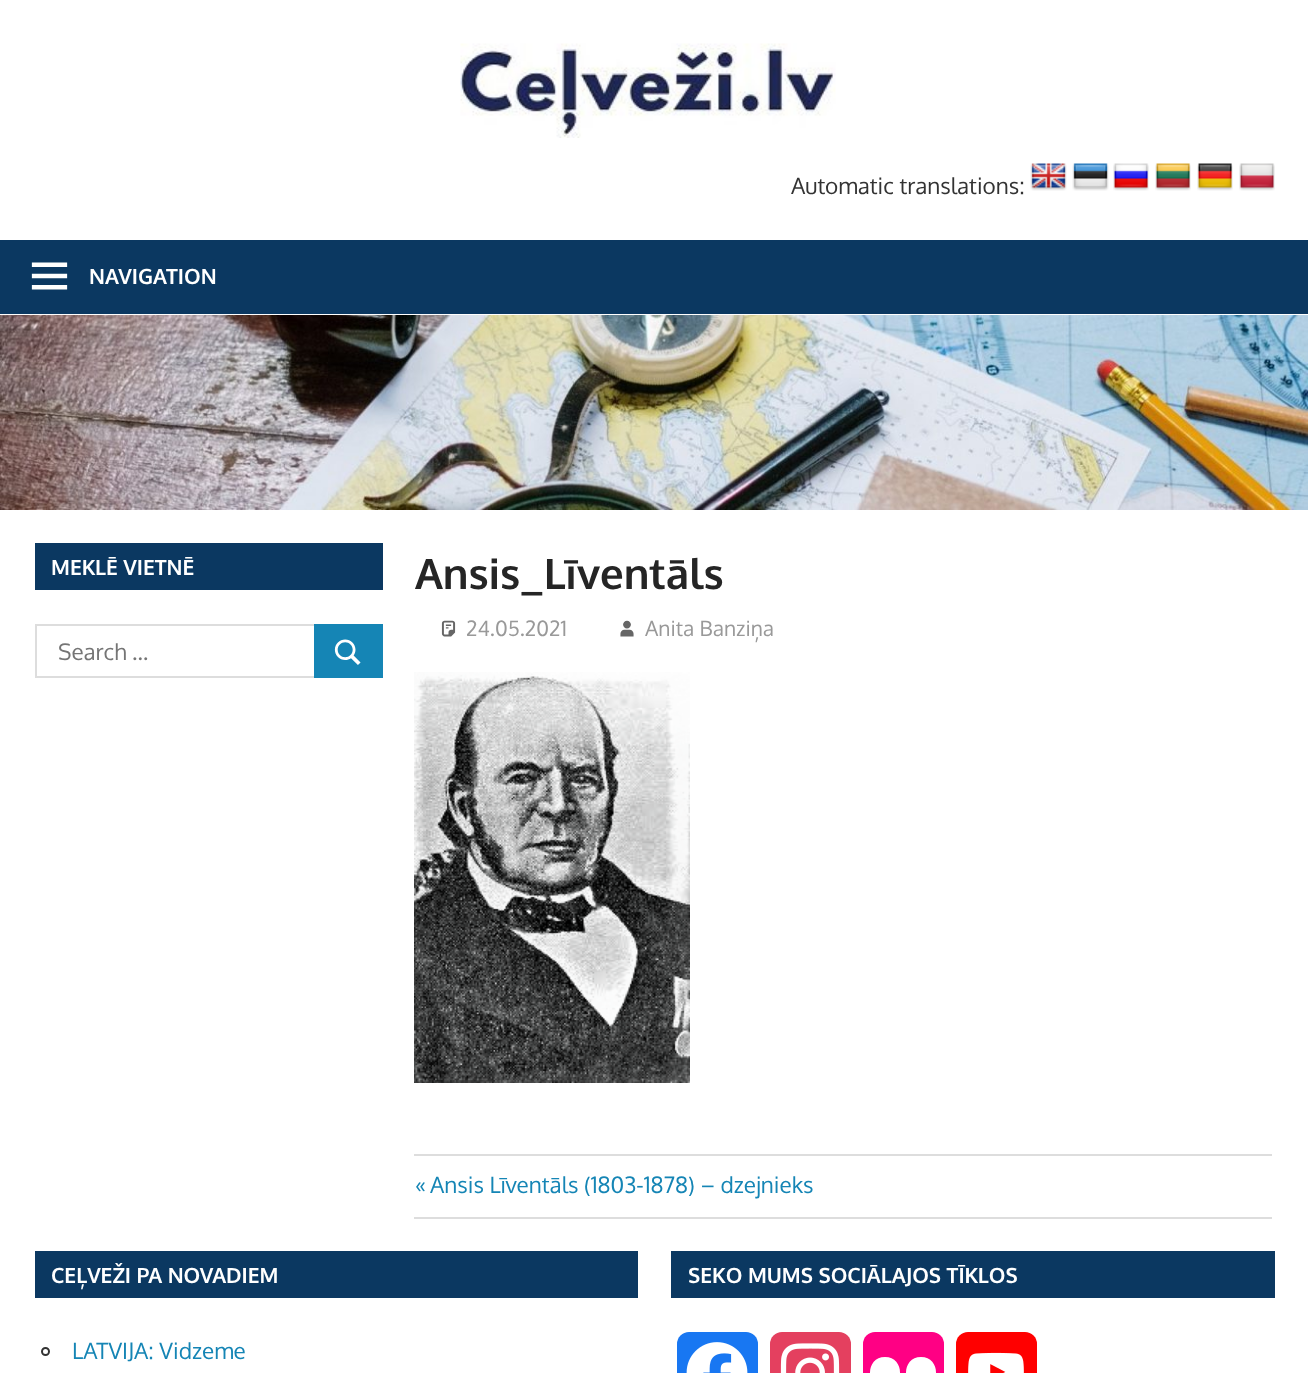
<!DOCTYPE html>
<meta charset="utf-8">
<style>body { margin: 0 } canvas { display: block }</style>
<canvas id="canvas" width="1308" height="1373"></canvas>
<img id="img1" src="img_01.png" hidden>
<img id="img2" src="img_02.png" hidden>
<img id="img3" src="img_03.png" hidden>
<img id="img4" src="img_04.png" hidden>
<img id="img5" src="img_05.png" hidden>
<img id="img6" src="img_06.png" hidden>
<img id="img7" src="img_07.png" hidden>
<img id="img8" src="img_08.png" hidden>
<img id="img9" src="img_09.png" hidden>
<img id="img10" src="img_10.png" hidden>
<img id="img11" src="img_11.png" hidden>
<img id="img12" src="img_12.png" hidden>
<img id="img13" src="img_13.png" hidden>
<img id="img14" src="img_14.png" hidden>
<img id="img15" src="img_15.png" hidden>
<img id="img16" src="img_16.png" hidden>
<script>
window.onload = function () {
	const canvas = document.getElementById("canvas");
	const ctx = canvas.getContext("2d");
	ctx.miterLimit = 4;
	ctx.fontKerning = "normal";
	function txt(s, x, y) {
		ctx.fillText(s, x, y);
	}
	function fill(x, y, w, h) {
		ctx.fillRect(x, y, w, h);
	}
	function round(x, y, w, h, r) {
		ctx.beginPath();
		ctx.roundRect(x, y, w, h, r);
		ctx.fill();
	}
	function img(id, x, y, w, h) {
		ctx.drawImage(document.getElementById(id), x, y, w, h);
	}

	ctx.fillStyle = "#FFFFFF";
	fill(0, 0, 1308, 1373);
	img("img1", 460, 43, 376, 95);
	img("img2", 1030, 163, 37, 28);
	img("img3", 1072, 163, 37, 28);
	img("img4", 1113, 163, 36, 28);
	img("img5", 1155, 163, 36, 28);
	img("img6", 1197, 163, 36, 28);
	img("img7", 1239, 163, 36, 28);
	ctx.fillStyle = "#0B3861";
	fill(0, 240, 1308, 74);
	img("img8", 31, 262, 37, 28);
	img("img9", 0, 315, 1308, 195);
	fill(35, 543, 348, 47);
	ctx.strokeStyle = "#DDDDDD";
	ctx.lineWidth = 2;
	ctx.strokeRect(36, 625, 346, 52);
	ctx.fillStyle = "#1585B5";
	fill(314, 624, 69, 54);
	img("img10", 334, 639, 27, 26);
	img("img11", 441, 620, 15, 17);
	img("img12", 620, 620, 14, 17);
	img("img13", 414, 672, 276, 411);
	ctx.fillStyle = "#DDDDDD";
	fill(414, 1154, 858, 2);
	fill(414, 1217, 858, 2);
	ctx.fillStyle = "#0B3861";
	fill(35, 1251, 603, 47);
	ctx.beginPath();
	ctx.arc(45.5, 1351.5, 3.5, 0, Math.PI * 2);
	ctx.strokeStyle = "#333333";
	ctx.stroke();
	fill(671, 1251, 604, 47);
	ctx.fillStyle = "#1877F2";
	round(677, 1332, 81, 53, 12);
	img("img14", 686, 1342, 62, 31);
	ctx.fillStyle = "#E4405F";
	round(770, 1332, 81, 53, 12);
	img("img15", 780, 1343, 60, 30);
	ctx.fillStyle = "#FF0084";
	round(863, 1332, 81, 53, 12);
	ctx.fillStyle = "#FFFFFF";
	ctx.beginPath();
	ctx.moveTo(921, 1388);
	ctx.bezierCurveTo(941, 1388, 941, 1357, 921, 1357);
	ctx.bezierCurveTo(901, 1357, 901, 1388, 921, 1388);
	ctx.moveTo(885, 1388);
	ctx.bezierCurveTo(905, 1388, 905, 1357, 885, 1357);
	ctx.bezierCurveTo(865, 1357, 865, 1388, 885, 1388);
	ctx.fill();
	ctx.fillStyle = "#FF0000";
	round(956, 1332, 81, 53, 12);
	img("img16", 968, 1352, 56, 21);
	ctx.font = "22.5px Oxygen";
	ctx.fillStyle = "#333333";
	txt("Automatic translations:", 791, 194);
	ctx.font = "bold 21px Oxygen";
	ctx.fillStyle = "#FFFFFF";
	txt("NAVIGATION", 89, 284);
	txt("MEKLĒ VIETNĒ", 51, 575);
	ctx.save();
	ctx.beginPath();
	ctx.rect(59, 638, 249, 28);
	ctx.clip();
	ctx.font = "22.5px Oxygen";
	ctx.fillStyle = "#757575";
	txt("Search …", 58, 660);
	ctx.restore();
	ctx.font = "bold 42px Oxygen";
	ctx.fillStyle = "#252525";
	txt("Ansis_Līventāls", 415, 589);
	ctx.font = "21px Oxygen";
	ctx.fillStyle = "#999999";
	txt("24.05.2021", 466, 636);
	txt("Anita Banziņa", 645, 636);
	ctx.font = "22.5px Oxygen";
	ctx.fillStyle = "#1585B5";
	txt("«", 415, 1193);
	txt("Ansis Līventāls (1803-1878) – dzejnieks", 430, 1193);
	ctx.font = "bold 21px Oxygen";
	ctx.fillStyle = "#FFFFFF";
	txt("CEĻVEŽI PA NOVADIEM", 51, 1283);
	ctx.font = "22.5px Oxygen";
	ctx.fillStyle = "#1585B5";
	txt("LATVIJA: Vidzeme", 72, 1359);
	ctx.font = "bold 21px Oxygen";
	ctx.fillStyle = "#FFFFFF";
	txt("SEKO MUMS SOCIĀLAJOS TĪKLOS", 688, 1283);
};
</script>
